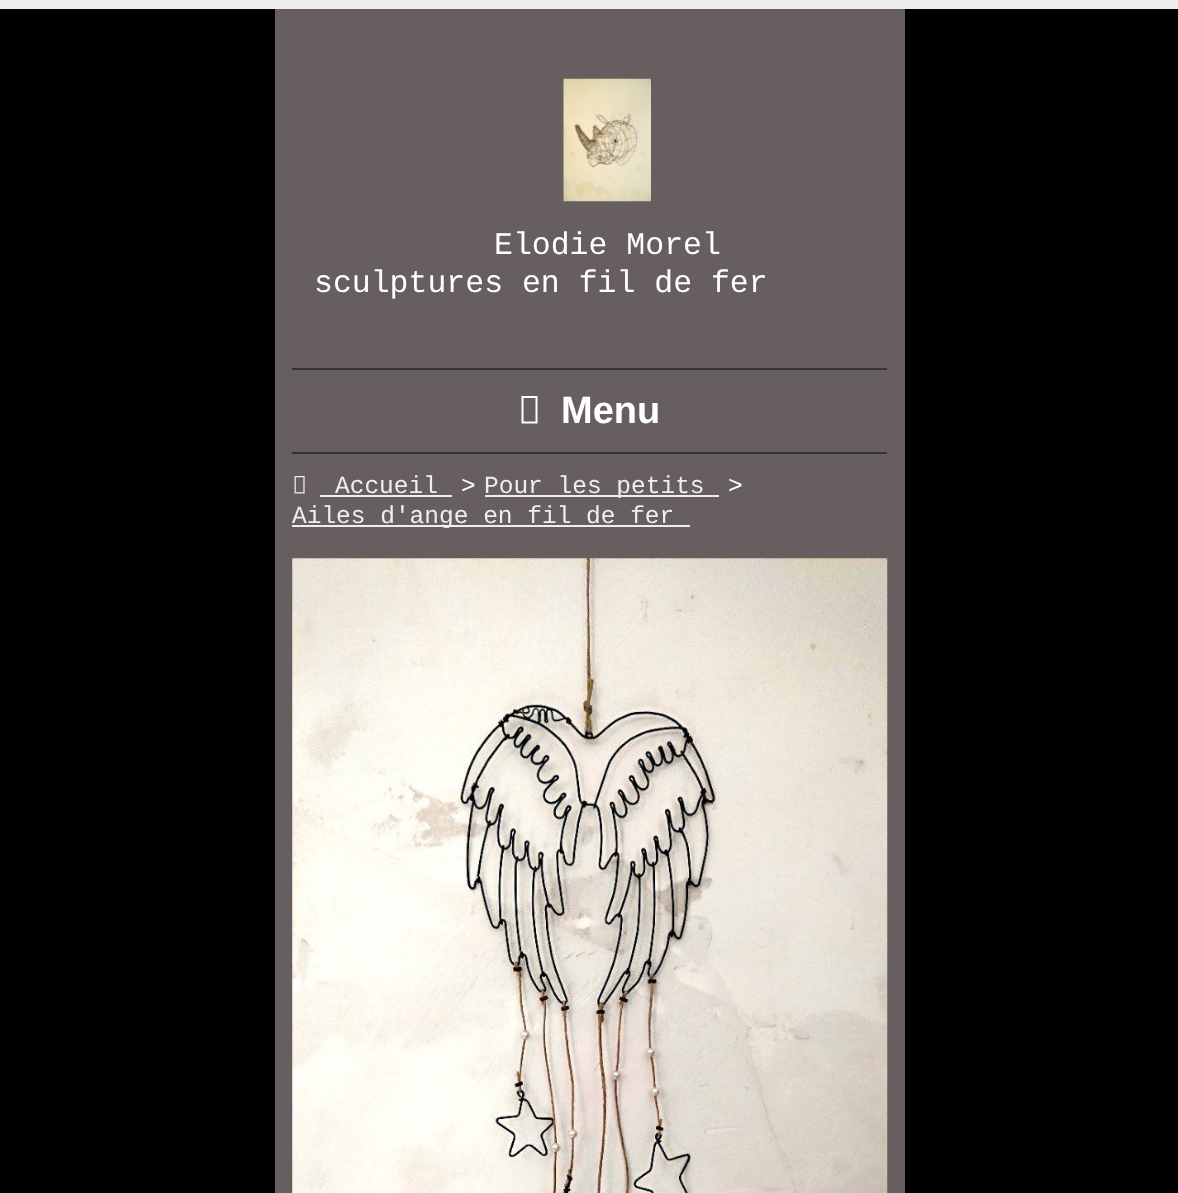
<!DOCTYPE html>
<meta charset="utf-8">
<style>body { margin: 0 } canvas { display: block }</style>
<canvas id="canvas" width="1178" height="1193"></canvas>
<img id="img1" src="img_01.png" hidden>
<img id="img2" src="img_02.png" hidden>
<img id="img3" src="img_03.png" hidden>
<script>
window.onload = function () {
	const canvas = document.getElementById("canvas");
	const ctx = canvas.getContext("2d");
	ctx.miterLimit = 4;
	ctx.fontKerning = "normal";
	function txt(s, x, y) {
		ctx.fillText(s, x, y);
	}
	function fill(x, y, w, h) {
		ctx.fillRect(x, y, w, h);
	}
	function img(id, x, y, w, h) {
		ctx.drawImage(document.getElementById(id), x, y, w, h);
	}

	ctx.fillStyle = "#000000";
	fill(0, 0, 1178, 1193);
	ctx.fillStyle = "#EEEEEE";
	fill(0, 0, 1178, 9);
	ctx.fillStyle = "#675F5F";
	fill(275, 9, 630, 1184);
	img("img1", 563, 78, 88, 124);
	ctx.fillStyle = "#333333";
	fill(292, 368, 595, 2);
	fill(292, 452, 595, 2);
	ctx.fillStyle = "#FFFFFF";
	ctx.beginPath();
	ctx.moveTo(521.5, 423.5);
	ctx.lineTo(521.5, 396);
	ctx.lineTo(537.5, 396);
	ctx.lineTo(537.5, 423.5);
	ctx.closePath();
	ctx.moveTo(523.5, 421.5);
	ctx.lineTo(535.5, 421.5);
	ctx.lineTo(535.5, 398);
	ctx.lineTo(523.5, 398);
	ctx.closePath();
	ctx.fill();
	img("img2", 294, 476, 11, 18);
	ctx.fillStyle = "#EEEEEE";
	fill(320, 495, 132, 2);
	fill(485, 495, 234, 2);
	fill(292, 525, 398, 2);
	img("img3", 292, 558, 596, 635);
	ctx.font = "31.5px Liberation Mono";
	ctx.fillStyle = "#FFFFFF";
	txt("Elodie Morel", 494, 254);
	txt("sculptures en fil de fer", 314, 292);
	ctx.font = "bold 38px Liberation Sans";
	txt("Menu", 561, 423);
	ctx.font = "24.5px Liberation Mono";
	ctx.fillStyle = "#EEEEEE";
	txt("Accueil", 335, 493);
	ctx.fillStyle = "#FFFFFF";
	txt(">", 461, 493);
	ctx.fillStyle = "#EEEEEE";
	txt("Pour les petits", 484, 493);
	ctx.fillStyle = "#FFFFFF";
	txt(">", 728, 493);
	ctx.fillStyle = "#EEEEEE";
	txt("Ailes d'ange en fil de fer", 292, 523);
};
</script>
